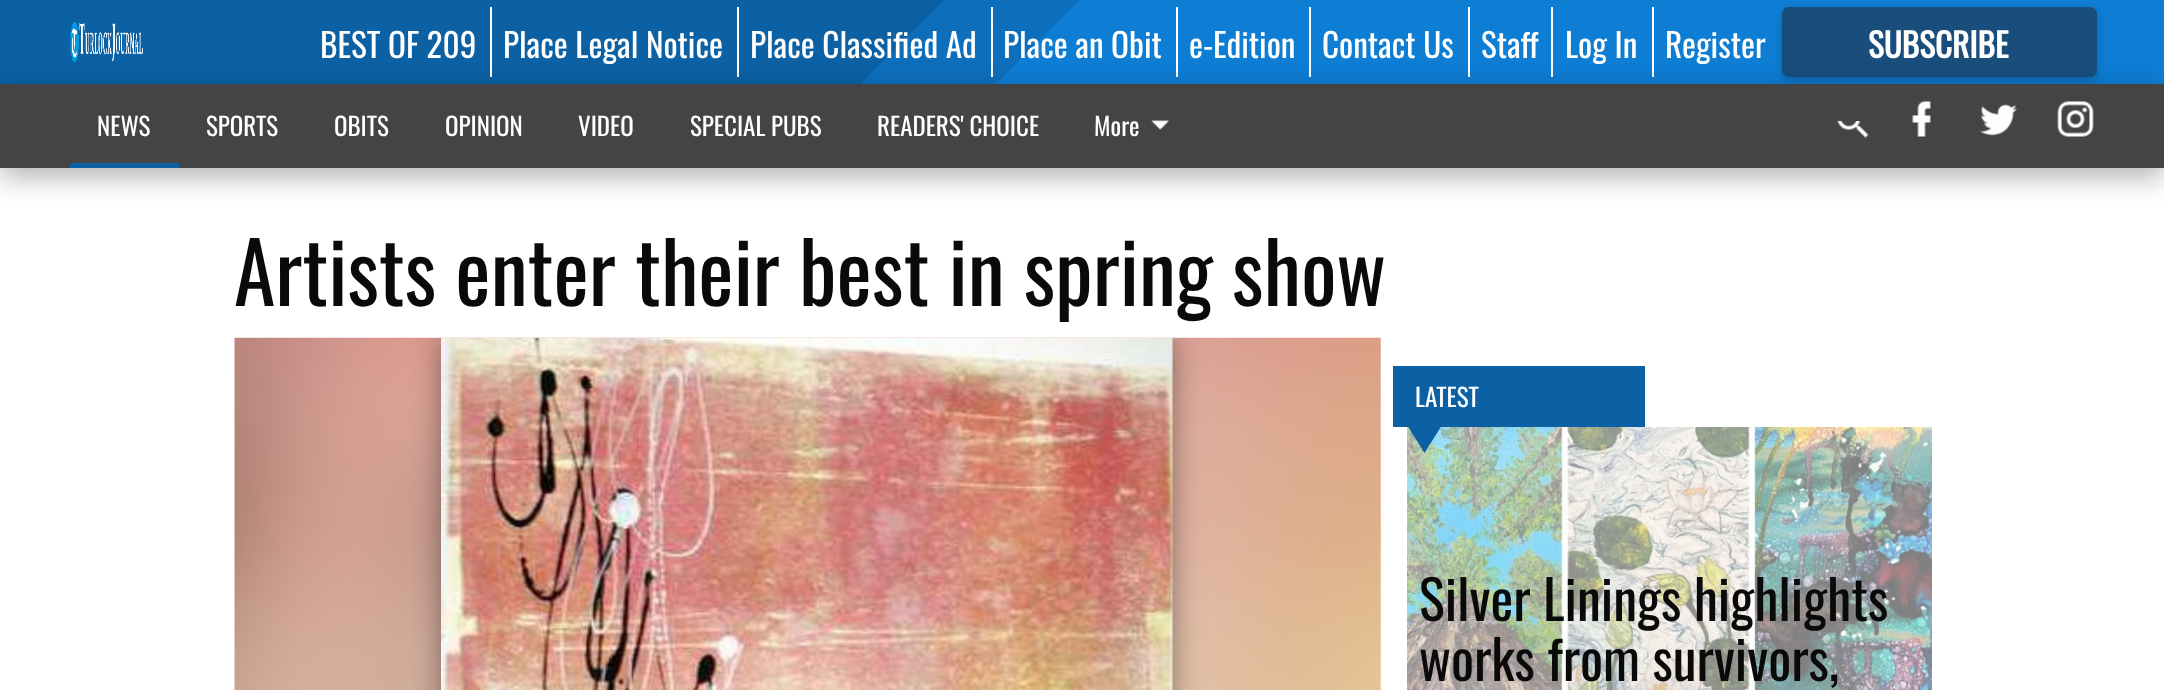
<!DOCTYPE html>
<meta charset="utf-8">
<style>body { margin: 0 } canvas { display: block }</style>
<canvas id="canvas" width="2164" height="690"></canvas>
<img id="img1" src="img_01.png" hidden>
<img id="img2" src="img_02.png" hidden>
<img id="img3" src="img_03.png" hidden>
<img id="img4" src="img_04.png" hidden>
<img id="img5" src="img_05.png" hidden>
<img id="img6" src="img_06.png" hidden>
<img id="img7" src="img_08.png" hidden>
<img id="img8" src="img_07.png" hidden>
<img id="img9" src="img_09.png" hidden>
<script>
window.onload = function () {
	const canvas = document.getElementById("canvas");
	const ctx = canvas.getContext("2d");
	ctx.miterLimit = 4;
	ctx.fontKerning = "normal";
	function txt(s, x, y) {
		ctx.fillText(s, x, y);
	}
	function fill(x, y, w, h) {
		ctx.fillRect(x, y, w, h);
	}
	function round(x, y, w, h, r) {
		ctx.beginPath();
		ctx.roundRect(x, y, w, h, r);
		ctx.fill();
	}
	function img(id, x, y, w, h) {
		ctx.drawImage(document.getElementById(id), x, y, w, h);
	}
	let gradient;

	ctx.fillStyle = "#FFFFFF";
	fill(0, 0, 2164, 690);
	gradient = ctx.createLinearGradient(520, -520, 1645, 604);
	gradient.addColorStop(0.42, "#0B61A4");
	gradient.addColorStop(0.42, "#0D6FBC");
	gradient.addColorStop(0.48, "#0D6FBC");
	gradient.addColorStop(0.48, "#0E7DD4");
	ctx.fillStyle = gradient;
	fill(0, 0, 2164, 84);
	img("img1", 70, 21, 73, 42);
	ctx.fillStyle = "#FEFEFE";
	fill(490, 7, 2, 70);
	fill(737, 7, 2, 70);
	fill(991, 7, 2, 70);
	fill(1176, 7, 2, 70);
	fill(1309, 7, 2, 70);
	fill(1551, 7, 2, 70);
	fill(1468, 7, 2, 70);
	fill(1652, 7, 2, 70);
	ctx.fillStyle = "rgba(0, 0, 0, 0.2)";
	ctx.filter = "blur(4.5px)";
	ctx.beginPath();
	ctx.roundRect(1782, 11, 315, 70, 7);
	ctx.fill();
	ctx.filter = "none";
	ctx.fillStyle = "#184D7C";
	round(1782, 7, 315, 70, 7);
	ctx.fillStyle = "rgba(0, 0, 0, 0.3)";
	ctx.filter = "blur(14px)";
	ctx.beginPath();
	ctx.rect(0, 93, 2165, 84);
	ctx.fill();
	ctx.filter = "none";
	ctx.fillStyle = "#444444";
	fill(0, 84, 2164, 84);
	ctx.fillStyle = "#0B61A4";
	fill(70, 163, 109, 5);
	img("img2", 1151, 120, 19, 10);
	img("img3", 1837, 121, 32, 17);
	img("img4", 1912, 101, 19, 36);
	img("img5", 1980, 104, 37, 32);
	img("img6", 2057, 101, 37, 36);
	img("img7", 234, 337, 1147, 353);
	ctx.save();
	ctx.beginPath();
	ctx.rect(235, 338, 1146, 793);
	ctx.clip();
	ctx.fillStyle = "rgba(0, 0, 0, 0.4)";
	ctx.filter = "blur(14px)";
	ctx.beginPath();
	ctx.rect(441, 338, 732, 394);
	ctx.fill();
	ctx.filter = "none";
	ctx.restore();
	img("img8", 441, 337, 732, 353);
	fill(1393, 366, 252, 61);
	img("img9", 1407, 427, 525, 263);
	ctx.beginPath();
	ctx.moveTo(1407, 425);
	ctx.lineTo(1442, 425);
	ctx.lineTo(1424.5, 453);
	ctx.closePath();
	ctx.fill();
	ctx.font = "33.25px Oswald";
	ctx.fillStyle = "#FEFEFE";
	txt("BEST OF 209", 320, 58);
	txt("Place Legal Notice", 503, 58);
	txt("Place Classified Ad", 750, 58);
	txt("Place an Obit", 1003, 58);
	txt("e-Edition", 1189, 58);
	txt("Contact Us", 1322, 58);
	txt("Staff", 1481, 58);
	txt("Log In", 1565, 58);
	txt("Register", 1665, 58);
	ctx.font = "bold 33.25px Oswald";
	txt("SUBSCRIBE", 1868, 58);
	ctx.font = "25px Oswald";
	txt("NEWS", 97, 136);
	txt("SPORTS", 206, 136);
	txt("OBITS", 334, 136);
	txt("OPINION", 445, 136);
	txt("VIDEO", 578, 136);
	txt("SPECIAL PUBS", 690, 136);
	txt("READERS' CHOICE", 877, 136);
	txt("More", 1094, 136);
	ctx.font = "84px Oswald";
	ctx.fillStyle = "#0A0A0A";
	txt("Artists enter their best in spring show", 234, 306);
	ctx.font = "25px Oswald";
	ctx.fillStyle = "#FEFEFE";
	txt("LATEST", 1415, 407);
	ctx.font = "54.25px Oswald";
	ctx.fillStyle = "#0A0A0A";
	txt("Silver Linings highlights", 1419, 621);
	txt("works from survivors,", 1419, 681);
};
</script>
